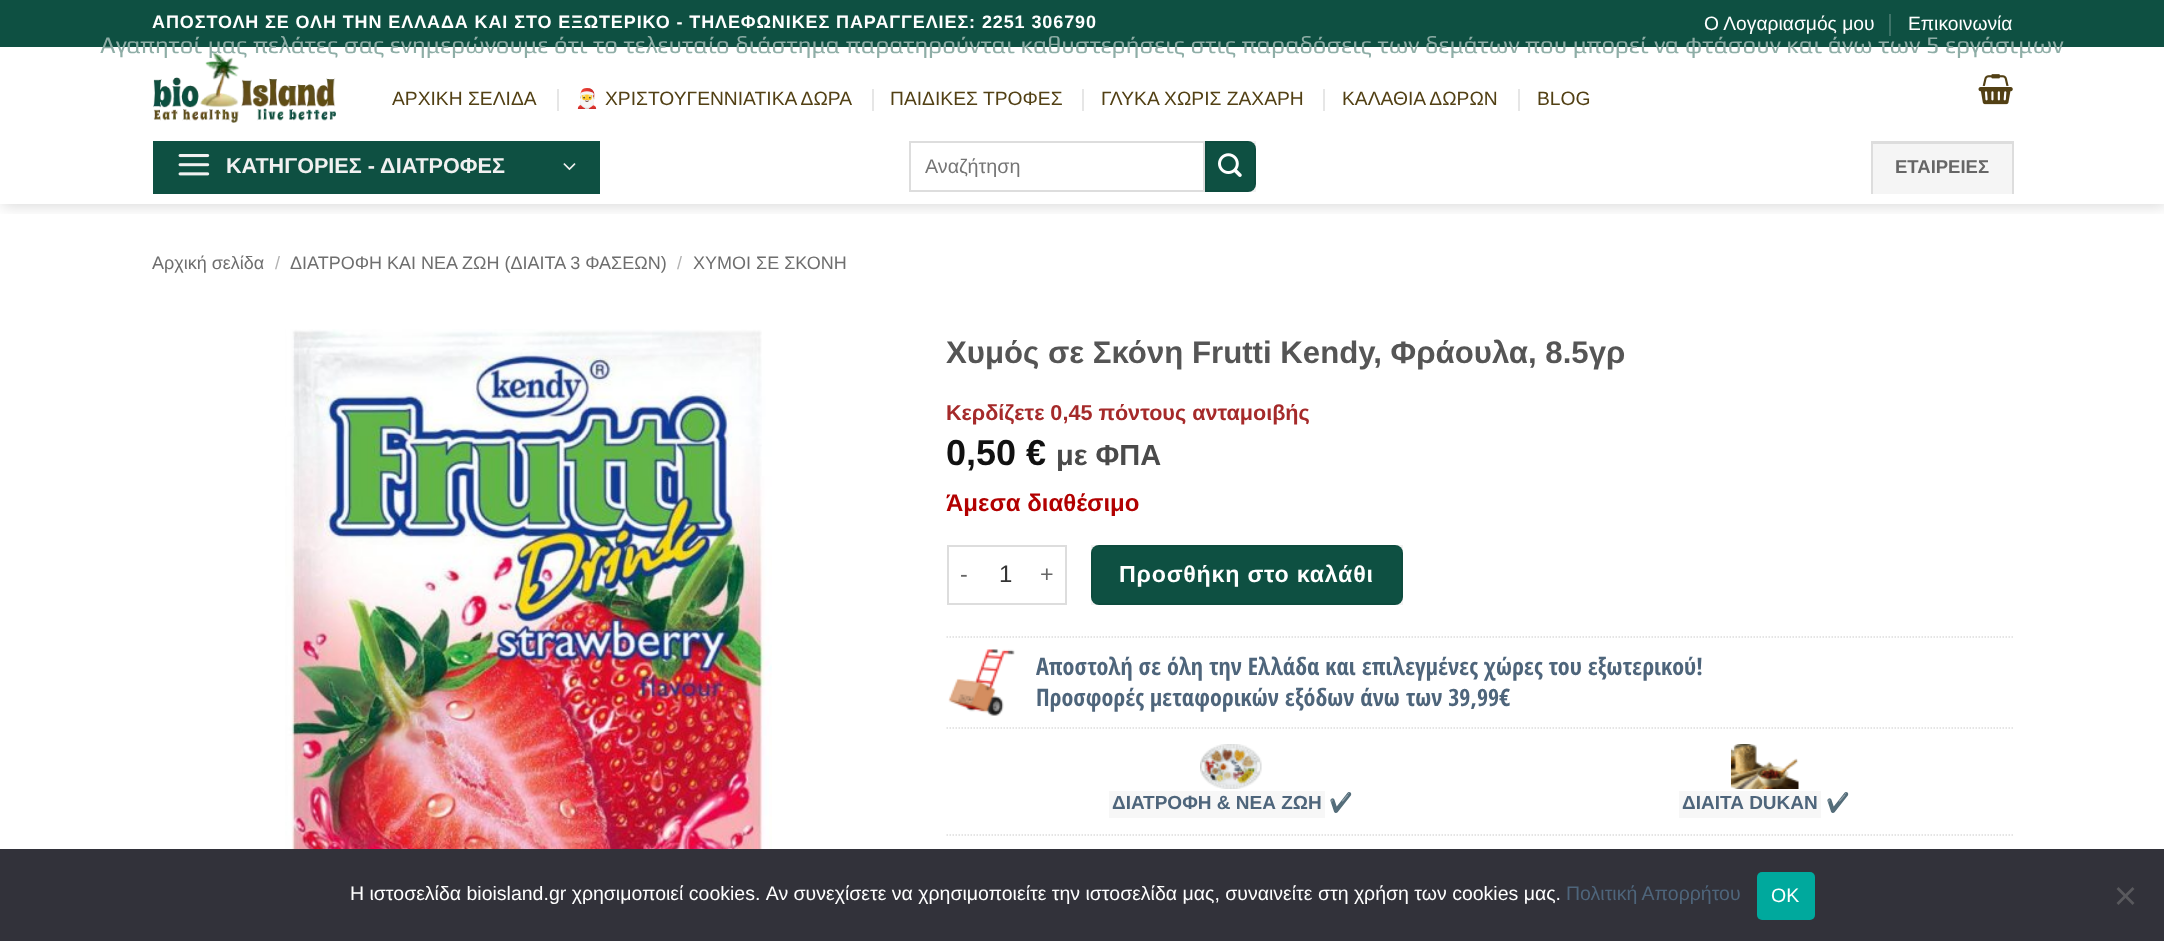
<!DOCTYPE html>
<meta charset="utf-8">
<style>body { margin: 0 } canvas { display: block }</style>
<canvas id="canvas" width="2164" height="941"></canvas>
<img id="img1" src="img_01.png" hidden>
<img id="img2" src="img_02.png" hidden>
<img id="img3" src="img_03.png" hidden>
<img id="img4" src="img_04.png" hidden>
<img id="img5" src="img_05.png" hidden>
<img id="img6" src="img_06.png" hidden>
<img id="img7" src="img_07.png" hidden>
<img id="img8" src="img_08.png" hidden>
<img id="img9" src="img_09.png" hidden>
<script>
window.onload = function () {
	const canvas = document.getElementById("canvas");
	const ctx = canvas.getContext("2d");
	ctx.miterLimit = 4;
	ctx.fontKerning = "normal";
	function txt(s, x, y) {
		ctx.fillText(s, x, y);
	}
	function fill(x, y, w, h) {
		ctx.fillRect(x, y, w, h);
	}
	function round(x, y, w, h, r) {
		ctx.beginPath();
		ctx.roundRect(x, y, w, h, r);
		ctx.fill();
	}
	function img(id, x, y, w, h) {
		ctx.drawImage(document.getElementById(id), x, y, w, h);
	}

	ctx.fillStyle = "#FFFFFF";
	fill(0, 0, 2164, 941);
	ctx.save();
	ctx.beginPath();
	ctx.rect(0, 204, 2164, 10);
	ctx.clip();
	ctx.fillStyle = "rgba(0, 0, 0, 0.15)";
	ctx.filter = "blur(7.5px)";
	ctx.beginPath();
	ctx.rect(2, 2, 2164, 204);
	ctx.fill();
	ctx.filter = "none";
	ctx.restore();
	ctx.fillStyle = "#0E5042";
	fill(0, 0, 2164, 47);
	ctx.fillStyle = "#3E7368";
	fill(1889, 14, 2, 22);
	img("img1", 153, 52, 183, 71);
	ctx.fillStyle = "#E6E6E6";
	fill(557, 89, 2, 22);
	fill(872, 89, 2, 22);
	fill(1082, 89, 2, 22);
	fill(1323, 89, 2, 22);
	fill(1518, 89, 2, 22);
	img("img2", 1978, 74, 35, 31);
	ctx.fillStyle = "#0E5042";
	fill(153, 141, 447, 53);
	img("img3", 178, 154, 32, 22);
	img("img4", 563, 163, 13, 8);
	ctx.strokeStyle = "#DDDDDD";
	ctx.lineWidth = 2;
	ctx.strokeRect(910, 142, 294, 49);
	ctx.beginPath();
	ctx.roundRect(1205, 141, 51, 51, [0, 8, 8, 0]);
	ctx.fill();
	ctx.strokeStyle = "rgba(0, 0, 0, 0.05)";
	ctx.strokeRect(1206, 142, 49, 49);
	img("img5", 1218, 153, 24, 24);
	ctx.fillStyle = "#F5F5F5";
	fill(1873, 144, 139, 50);
	ctx.fillStyle = "#DDDDDD";
	fill(1871, 141, 142, 3);
	fill(2012, 141, 2, 53);
	fill(1871, 141, 2, 53);
	img("img6", 285, 329, 487, 520);
	fill(947, 545, 120, 2);
	fill(947, 603, 84, 2);
	fill(947, 545, 2, 60);
	fill(1065, 545, 2, 60);
	fill(1031, 603, 36, 2);
	ctx.fillStyle = "#0E5042";
	round(1091, 545, 312, 60, 8);
	ctx.strokeRect(1092, 546, 310, 58);
	ctx.beginPath();
	ctx.moveTo(946.5, 637);
	ctx.lineTo(2013, 637);
	ctx.strokeStyle = "#DDDDDD";
	ctx.lineWidth = 1.5;
	ctx.setLineDash([1.5, 1.5]);
	ctx.stroke();
	img("img7", 948, 649, 67, 67);
	ctx.beginPath();
	ctx.moveTo(946.5, 728);
	ctx.lineTo(2013, 728);
	ctx.stroke();
	img("img8", 1200, 744, 62, 45);
	ctx.fillStyle = "#F7F7F7";
	fill(1109, 791, 216, 27);
	img("img9", 1731, 744, 68, 45);
	fill(1679, 791, 142, 27);
	ctx.beginPath();
	ctx.moveTo(946.5, 835);
	ctx.lineTo(2013, 835);
	ctx.stroke();
	ctx.fillStyle = "#32323A";
	fill(0, 849, 2164, 92);
	ctx.fillStyle = "#00A99D";
	round(1757, 872, 58, 48, 5);
	ctx.fillStyle = "#59595D";
	ctx.beginPath();
	ctx.moveTo(2132.5, 887);
	ctx.lineTo(2134.5, 889);
	ctx.lineTo(2118.5, 905);
	ctx.lineTo(2116.5, 903);
	ctx.closePath();
	ctx.fill();
	ctx.beginPath();
	ctx.moveTo(2116.5, 889);
	ctx.lineTo(2118.5, 887);
	ctx.lineTo(2134.5, 903);
	ctx.lineTo(2132.5, 905);
	ctx.closePath();
	ctx.fill();
	ctx.letterSpacing = "0.9px";
	ctx.font = "bold 18px Liberation Sans";
	ctx.fillStyle = "#FFFFFF";
	txt("ΑΠΟΣΤΟΛΗ ΣΕ ΟΛΗ ΤΗΝ ΕΛΛΑΔΑ ΚΑΙ ΣΤΟ ΕΞΩΤΕΡΙΚΟ - ΤΗΛΕΦΩΝΙΚΕΣ ΠΑΡΑΓΓΕΛΙΕΣ: 2251 306790", 152, 28);
	ctx.letterSpacing = "0px";
	ctx.font = "19.25px Liberation Sans";
	txt("Ο Λογαριασμός μου", 1704, 30);
	txt("Επικοινωνία", 1908, 30);
	ctx.fillStyle = "#524014";
	txt("ΑΡΧΙΚΗ ΣΕΛΙΔΑ", 392, 105);
	ctx.font = "19.25px Noto Color Emoji";
	txt("🎅", 575, 105);
	ctx.font = "19.25px Liberation Sans";
	txt("ΧΡΙΣΤΟΥΓΕΝΝΙΑΤΙΚΑ ΔΩΡΑ", 605, 105);
	txt("ΠΑΙΔΙΚΕΣ ΤΡΟΦΕΣ", 890, 105);
	txt("ΓΛΥΚΑ ΧΩΡΙΣ ΖΑΧΑΡΗ", 1101, 105);
	txt("ΚΑΛΑΘΙΑ ΔΩΡΩΝ", 1342, 105);
	txt("BLOG", 1537, 105);
	ctx.font = "bold 21.6px Liberation Sans";
	ctx.fillStyle = "#F1F1F1";
	txt("ΚΑΤΗΓΟΡΙΕΣ - ΔΙΑΤΡΟΦΕΣ", 226, 173);
	ctx.font = "19.75px Liberation Sans";
	ctx.fillStyle = "#757575";
	txt("Αναζήτηση", 925, 173);
	ctx.font = "bold 18.5px Liberation Sans";
	ctx.fillStyle = "#666666";
	txt("ΕΤΑΙΡΕΙΕΣ", 1895, 173);
	ctx.font = "18px Liberation Sans";
	ctx.fillStyle = "#6E6E6E";
	txt("Αρχική σελίδα", 152, 269);
	ctx.fillStyle = "#B2B2B2";
	txt("/", 275, 269);
	ctx.fillStyle = "#6E6E6E";
	txt("ΔΙΑΤΡΟΦΗ ΚΑΙ ΝΕΑ ΖΩΗ (ΔΙΑΙΤΑ 3 ΦΑΣΕΩΝ)", 290, 269);
	ctx.fillStyle = "#B2B2B2";
	txt("/", 677, 269);
	ctx.fillStyle = "#6E6E6E";
	txt("ΧΥΜΟΙ ΣΕ ΣΚΟΝΗ", 693, 269);
	ctx.font = "bold 31.2px Liberation Sans";
	ctx.fillStyle = "#555555";
	txt("Χυμός σε Σκόνη Frutti Kendy, Φράουλα, 8.5γρ", 946, 363);
	ctx.font = "bold 21.6px Liberation Sans";
	ctx.fillStyle = "#A52A2A";
	txt("Κερδίζετε 0,45 πόντους ανταμοιβής", 946, 420);
	ctx.font = "bold 36px Liberation Sans";
	ctx.fillStyle = "#111111";
	txt("0,50 €", 946, 465);
	ctx.font = "bold 29px Liberation Sans";
	ctx.fillStyle = "#4A4A4A";
	txt("με ΦΠΑ", 1056, 465);
	ctx.font = "bold 24px Liberation Sans";
	ctx.fillStyle = "#B20000";
	txt("Άμεσα διαθέσιμο", 946, 511);
	ctx.letterSpacing = "0.75px";
	ctx.font = "23.25px Liberation Sans";
	ctx.fillStyle = "#666666";
	txt("-", 960, 582);
	ctx.letterSpacing = "0px";
	ctx.font = "24px Liberation Sans";
	ctx.fillStyle = "#333333";
	txt("1", 999, 582);
	ctx.letterSpacing = "0.75px";
	ctx.font = "23.25px Liberation Sans";
	ctx.fillStyle = "#666666";
	txt("+", 1040, 582);
	ctx.font = "bold 23.25px Liberation Sans";
	ctx.fillStyle = "#FFFFFF";
	txt("Προσθήκη στο καλάθι", 1119, 582);
	ctx.letterSpacing = "0px";
	ctx.font = "bold 24px Open Sans Condensed";
	ctx.fillStyle = "#4E657B";
	txt("Αποστολή σε όλη την Ελλάδα και επιλεγμένες χώρες του εξωτερικού!", 1036, 675);
	txt("Προσφορές μεταφορικών εξόδων άνω των 39,99€", 1036, 706);
	ctx.font = "bold 19px Liberation Sans";
	txt("ΔΙΑΤΡΟΦΗ & ΝΕΑ ΖΩΗ", 1112, 809);
	ctx.font = "bold 19px Noto Color Emoji";
	ctx.fillStyle = "#4A4A4A";
	txt("✔️", 1329, 809);
	ctx.font = "bold 19px Liberation Sans";
	ctx.fillStyle = "#4E657B";
	txt("ΔΙΑΙΤΑ DUKAN", 1682, 809);
	ctx.font = "bold 19px Noto Color Emoji";
	ctx.fillStyle = "#4A4A4A";
	txt("✔️", 1826, 809);
	ctx.font = "24px Play";
	ctx.fillStyle = "#8EADA6";
	txt("Αγαπητοί μας πελάτες σας ενημερώνουμε ότι το τελευταίο διάστημα παρατηρούνται καθυστερήσεις στις παραδόσεις των δεμάτων που μπορεί να φτάσουν και άνω των 5 εργάσιμων", 100, 53);
	ctx.font = "19.5px Liberation Sans";
	ctx.fillStyle = "#FFFFFF";
	txt("Η ιστοσελίδα bioisland.gr χρησιμοποιεί cookies. Αν συνεχίσετε να χρησιμοποιείτε την ιστοσελίδα μας, συναινείτε στη χρήση των cookies μας.", 350, 900);
	ctx.fillStyle = "#4E657B";
	txt("Πολιτική Απορρήτου", 1566, 900);
	ctx.fillStyle = "#FFFFFF";
	txt("ΟΚ", 1771, 902);
};
</script>
